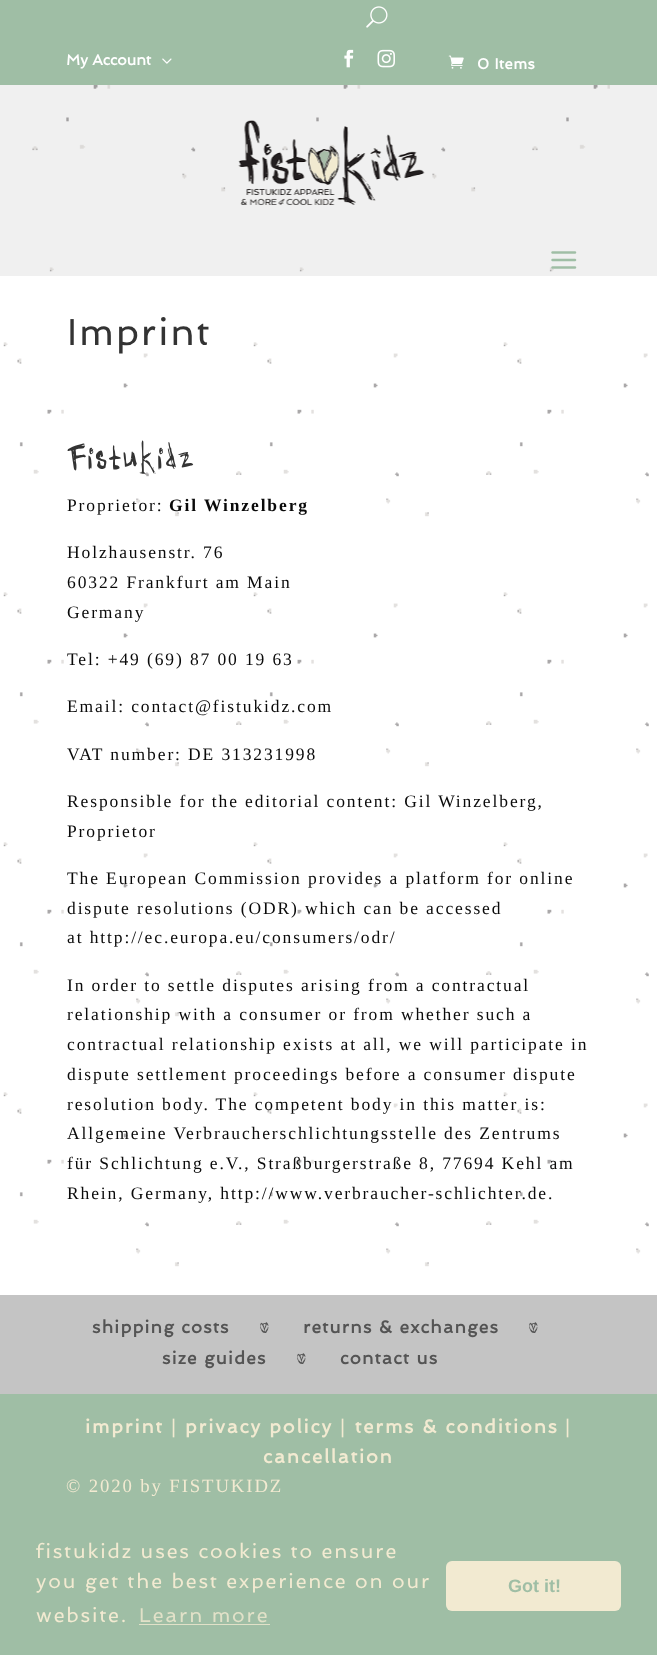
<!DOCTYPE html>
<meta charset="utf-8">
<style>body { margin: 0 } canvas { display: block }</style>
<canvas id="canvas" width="657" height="1655"></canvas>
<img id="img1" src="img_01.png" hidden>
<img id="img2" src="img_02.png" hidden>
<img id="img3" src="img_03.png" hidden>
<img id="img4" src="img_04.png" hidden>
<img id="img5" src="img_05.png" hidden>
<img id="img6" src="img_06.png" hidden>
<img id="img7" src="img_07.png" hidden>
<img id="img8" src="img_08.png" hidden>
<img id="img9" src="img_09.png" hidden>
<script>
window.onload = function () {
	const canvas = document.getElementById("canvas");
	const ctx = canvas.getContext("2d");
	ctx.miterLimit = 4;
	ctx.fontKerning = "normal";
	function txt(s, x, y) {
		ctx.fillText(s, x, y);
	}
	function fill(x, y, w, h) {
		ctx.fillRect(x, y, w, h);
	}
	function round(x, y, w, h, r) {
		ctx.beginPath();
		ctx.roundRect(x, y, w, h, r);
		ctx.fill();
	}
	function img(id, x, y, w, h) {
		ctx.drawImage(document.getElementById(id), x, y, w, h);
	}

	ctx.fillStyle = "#9FBEA5";
	fill(0, 0, 657, 1655);
	img("img1", 366, 6, 22, 22);
	img("img2", 162, 58, 10, 6);
	img("img3", 344, 49, 10, 19);
	img("img4", 377, 49, 18, 19);
	img("img5", 448, 55, 16, 14);
	ctx.fillStyle = "#F0F0F0";
	fill(0, 85, 657, 191);
	img("img6", 32, 85, 578, 187);
	img("img7", 238, 120, 187, 85);
	img("img8", 551, 251, 26, 18);
	ctx.fillStyle = "#FFFFFF";
	fill(0, 276, 657, 1019);
	img("img9", 3, 342, 646, 925);
	ctx.fillStyle = "#C4C4C4";
	fill(0, 1295, 657, 99);
	ctx.fillStyle = "#E1E1C8";
	fill(139, 1624, 131, 1);
	ctx.fillStyle = "#F2EAD1";
	round(446, 1561, 175, 50, 6);
	ctx.font = "bold 15px Spinnaker";
	ctx.fillStyle = "#FFFFFF";
	txt("My Account", 66, 65);
	ctx.letterSpacing = "0.5px";
	txt("0 Items", 477, 69);
	ctx.letterSpacing = "1.88px";
	ctx.font = "37.5px Spinnaker";
	ctx.fillStyle = "#333333";
	txt("Imprint", 67, 345);
	ctx.font = "500 40px 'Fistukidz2'";
	txt("Fistukidz", 67, 471);
	ctx.font = "17.5px Liberation Serif";
	ctx.fillStyle = "#0A0A0A";
	txt("Proprietor:", 67, 511);
	ctx.font = "bold 17.5px Liberation Serif";
	txt("Gil Winzelberg", 169, 511);
	ctx.font = "17.5px Liberation Serif";
	txt("Holzhausenstr. 76", 67, 558);
	txt("60322 Frankfurt am Main", 67, 588);
	txt("Germany", 67, 618);
	txt("Tel: +49 (69) 87 00 19 63", 67, 665);
	txt("Email: contact@fistukidz.com", 67, 712);
	txt("VAT number: DE 313231998", 67, 760);
	txt("Responsible for the editorial content: Gil Winzelberg,", 67, 807);
	txt("Proprietor", 67, 837);
	txt("The European Commission provides a platform for online", 67, 884);
	txt("dispute resolutions (ODR) which can be accessed", 67, 914);
	txt("at http://ec.europa.eu/consumers/odr/", 67, 943);
	txt("In order to settle disputes arising from a contractual", 67, 991);
	txt("relationship with a consumer or from whether such a", 67, 1020);
	txt("contractual relationship exists at all, we will participate in", 67, 1050);
	txt("dispute settlement proceedings before a consumer dispute", 67, 1080);
	txt("resolution body. The competent body in this matter is:", 67, 1110);
	txt("Allgemeine Verbraucherschlichtungsstelle des Zentrums", 67, 1139);
	txt("für Schlichtung e.V., Straßburgerstraße 8, 77694 Kehl am", 67, 1169);
	txt("Rhein, Germany, http://www.verbraucher-schlichter.de.", 67, 1199);
	ctx.letterSpacing = "1.25px";
	ctx.font = "bold 17.5px Spinnaker";
	ctx.fillStyle = "#545454";
	txt("shipping costs", 92, 1333);
	ctx.font = "bold 17.5px 'Fistukidz2'";
	txt("~", 260, 1333);
	ctx.font = "bold 17.5px Spinnaker";
	txt("returns & exchanges", 303, 1333);
	ctx.font = "bold 17.5px 'Fistukidz2'";
	txt("~", 529, 1333);
	ctx.font = "bold 17.5px Spinnaker";
	txt("size guides", 162, 1364);
	ctx.font = "bold 17.5px 'Fistukidz2'";
	txt("~", 297, 1364);
	ctx.font = "bold 17.5px Spinnaker";
	txt("contact us", 340, 1364);
	ctx.letterSpacing = "1.88px";
	ctx.font = "bold 18.75px Spinnaker";
	ctx.fillStyle = "#F2EAD1";
	txt("imprint", 85, 1433);
	ctx.font = "18.75px Spinnaker";
	txt("|", 171, 1433);
	ctx.font = "bold 18.75px Spinnaker";
	txt("privacy policy", 185, 1433);
	ctx.font = "18.75px Spinnaker";
	txt("|", 340, 1433);
	ctx.font = "bold 18.75px Spinnaker";
	txt("terms & conditions", 355, 1433);
	ctx.font = "18.75px Spinnaker";
	txt("|", 565, 1433);
	ctx.font = "bold 18.75px Spinnaker";
	txt("cancellation", 263, 1463);
	ctx.font = "18.75px Liberation Serif";
	txt("© 2020 by FISTUKIDZ", 66, 1492);
	ctx.font = "20px Spinnaker";
	txt("fistukidz uses cookies to ensure", 36, 1558);
	txt("you get the best experience on our", 36, 1588);
	txt("website.", 36, 1622);
	ctx.fillStyle = "#E1E1C8";
	txt("Learn more", 139, 1622);
	ctx.letterSpacing = "0px";
	ctx.font = "bold 18px Liberation Sans";
	ctx.fillStyle = "#9FBEA5";
	txt("Got it!", 508, 1592);
};
</script>
